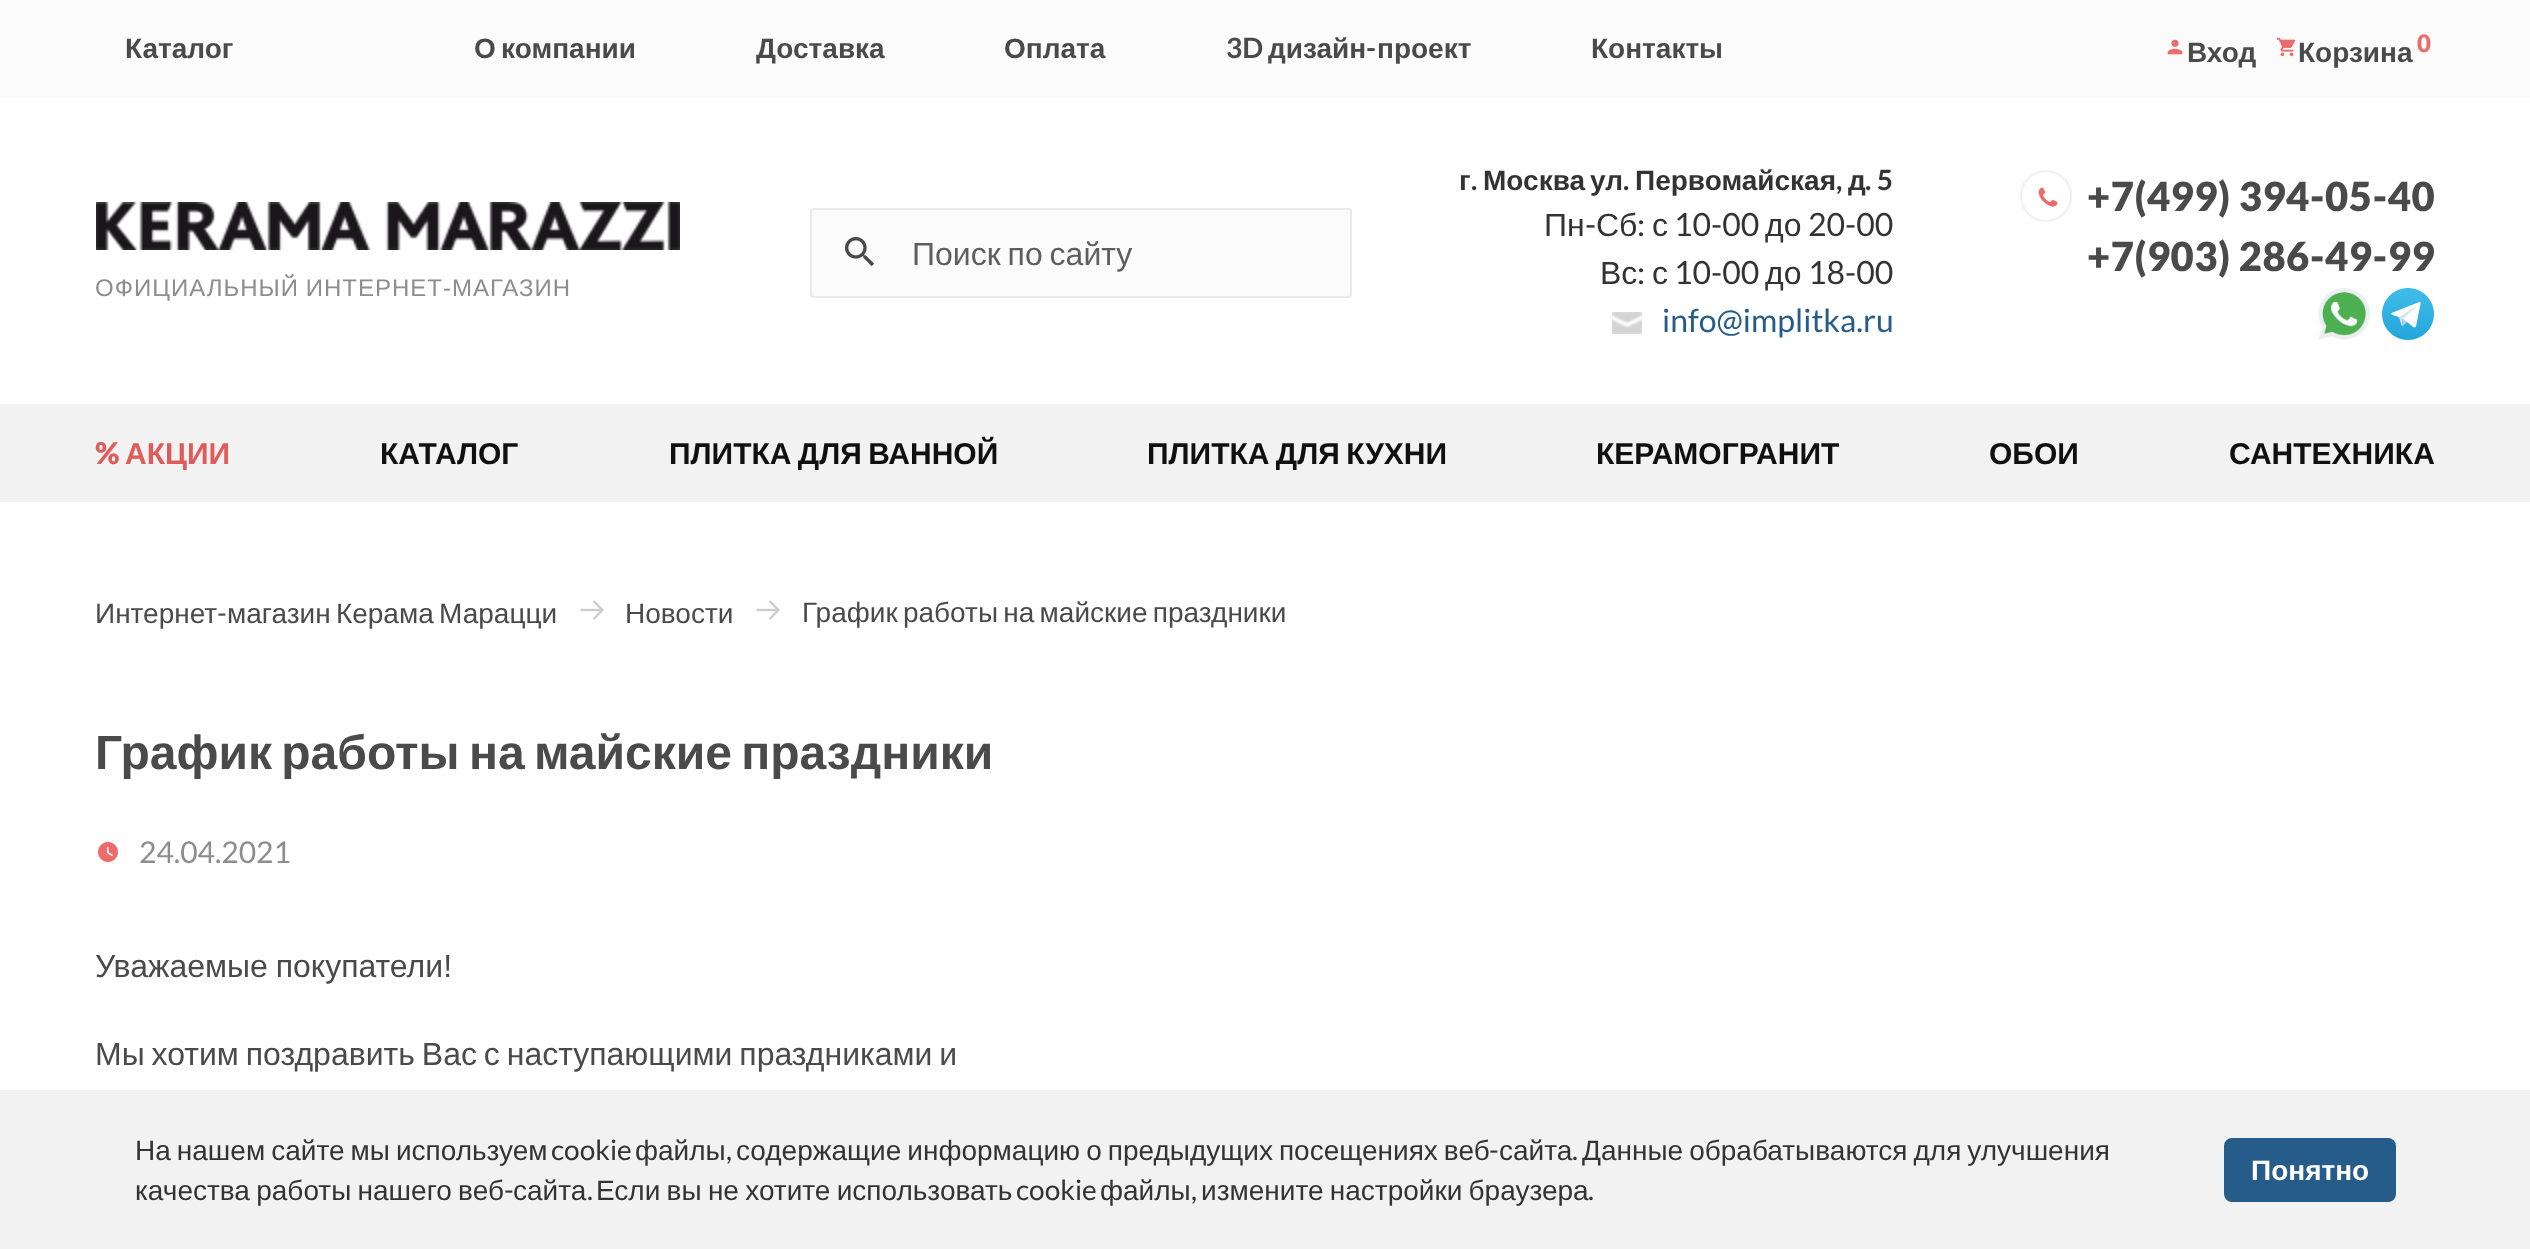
<!DOCTYPE html>
<meta charset="utf-8">
<style>body { margin: 0 } canvas { display: block }</style>
<canvas id="canvas" width="2530" height="1249"></canvas>
<img id="img1" src="img_01.png" hidden>
<img id="img2" src="img_02.png" hidden>
<img id="img3" src="img_03.png" hidden>
<img id="img4" src="img_04.png" hidden>
<img id="img5" src="img_05.png" hidden>
<img id="img6" src="img_06.png" hidden>
<img id="img7" src="img_07.png" hidden>
<img id="img8" src="img_08.png" hidden>
<img id="img9" src="img_09.png" hidden>
<img id="img10" src="img_10.png" hidden>
<script>
window.onload = function () {
	const canvas = document.getElementById("canvas");
	const ctx = canvas.getContext("2d");
	ctx.miterLimit = 4;
	ctx.fontKerning = "normal";
	function txt(s, x, y) {
		ctx.fillText(s, x, y);
	}
	function fill(x, y, w, h) {
		ctx.fillRect(x, y, w, h);
	}
	function img(id, x, y, w, h) {
		ctx.drawImage(document.getElementById(id), x, y, w, h);
	}

	ctx.fillStyle = "#FFFFFF";
	fill(0, 0, 2530, 1249);
	ctx.fillStyle = "#FBFBFB";
	fill(0, 0, 2530, 98);
	img("img1", 2167, 39, 16, 16);
	img("img2", 2276, 37, 20, 20);
	ctx.beginPath();
	ctx.roundRect(811, 209, 540, 88, 3);
	ctx.fill();
	ctx.strokeStyle = "#EAEAEA";
	ctx.lineWidth = 2;
	ctx.stroke();
	img("img3", 845, 237, 30, 30);
	img("img4", 1612, 312, 30, 22);
	ctx.beginPath();
	ctx.arc(2046, 196, 25, 0, Math.PI * 2);
	ctx.strokeStyle = "#F0F0F0";
	ctx.stroke();
	img("img5", 2038, 187, 20, 20);
	img("img6", 2318, 288, 52, 52);
	img("img7", 2382, 288, 52, 52);
	img("img8", 96, 202, 584, 48);
	ctx.fillStyle = "#F2F2F2";
	fill(0, 404, 2530, 98);
	img("img9", 580, 600, 24, 20);
	img("img9", 756, 600, 24, 20);
	img("img10", 98, 842, 20, 20);
	fill(0, 1090, 2530, 159);
	ctx.fillStyle = "#265C89";
	ctx.beginPath();
	ctx.roundRect(2225, 1139, 170, 62, 7);
	ctx.fill();
	ctx.strokeStyle = "#265C89";
	ctx.stroke();
	ctx.font = "bold 28px Liberation Sans";
	ctx.fillStyle = "#4A4A4A";
	txt("Каталог", 125, 58);
	ctx.wordSpacing = "-2.5px";
	txt("О компании", 474, 58);
	ctx.wordSpacing = "0px";
	txt("Доставка", 756, 58);
	txt("Оплата", 1004, 58);
	ctx.font = "bold 28px Lato";
	txt("3D", 1226, 58);
	ctx.font = "bold 28px Liberation Sans";
	txt("дизайн", 1268, 58);
	ctx.font = "bold 28px Lato";
	txt("-", 1366, 58);
	ctx.font = "bold 28px Liberation Sans";
	txt("проект", 1377, 58);
	txt("Контакты", 1591, 58);
	txt("Вход", 2187, 62);
	txt("Корзина", 2298, 62);
	ctx.font = "900 24px Lato";
	ctx.fillStyle = "#EC6C6B";
	txt("0", 2417, 52);
	ctx.wordSpacing = "-2px";
	ctx.font = "32px Liberation Sans";
	ctx.fillStyle = "#5E5E5E";
	txt("Поиск по сайту", 912, 265);
	ctx.wordSpacing = "0px";
	ctx.font = "bold 28px Liberation Sans";
	ctx.fillStyle = "#333333";
	txt("г", 1459, 190);
	ctx.font = "bold 28px Lato";
	txt(".", 1471, 190);
	ctx.font = "bold 28px Liberation Sans";
	txt("Москва", 1483, 190);
	txt("ул", 1590, 190);
	ctx.font = "bold 28px Lato";
	txt(".", 1623, 190);
	ctx.font = "bold 28px Liberation Sans";
	txt("Первомайская", 1635, 190);
	ctx.font = "bold 28px Lato";
	txt(",", 1836, 190);
	ctx.font = "bold 28px Liberation Sans";
	txt("д", 1848, 190);
	ctx.font = "bold 28px Lato";
	txt(". 5", 1865, 190);
	ctx.font = "32px Liberation Sans";
	txt("Пн", 1544, 236);
	ctx.font = "32px Lato";
	txt("-", 1585, 236);
	ctx.font = "32px Liberation Sans";
	txt("Сб", 1596, 236);
	ctx.font = "32px Lato";
	txt(":", 1637, 236);
	ctx.font = "32px Liberation Sans";
	txt("с", 1652, 236);
	ctx.font = "32px Lato";
	txt("10-00", 1674, 236);
	ctx.font = "32px Liberation Sans";
	txt("до", 1765, 236);
	ctx.font = "32px Lato";
	txt("20-00", 1808, 236);
	ctx.font = "32px Liberation Sans";
	txt("Вс", 1600, 284);
	ctx.font = "32px Lato";
	txt(":", 1637, 284);
	ctx.font = "32px Liberation Sans";
	txt("с", 1652, 284);
	ctx.font = "32px Lato";
	txt("10-00", 1674, 284);
	ctx.font = "32px Liberation Sans";
	txt("до", 1765, 284);
	ctx.font = "32px Lato";
	txt("18-00", 1808, 284);
	ctx.fillStyle = "#265C89";
	txt("info@implitka.ru", 1662, 332);
	ctx.letterSpacing = "0.5px";
	ctx.font = "900 40px Lato";
	ctx.fillStyle = "#4A4A4A";
	txt("+7(499) 394-05-40", 2087, 211);
	txt("+7(903) 286-49-99", 2087, 271);
	ctx.letterSpacing = "1px";
	ctx.wordSpacing = "-1px";
	ctx.font = "24px Liberation Sans";
	ctx.fillStyle = "#8D8D8D";
	txt("ОФИЦИАЛЬНЫЙ ИНТЕРНЕТ-МАГАЗИН", 95, 296);
	ctx.letterSpacing = "0px";
	ctx.wordSpacing = "0px";
	ctx.font = "900 30px Lato";
	ctx.fillStyle = "#DF5C5B";
	txt("%", 95, 464);
	ctx.font = "bold 30px Liberation Sans";
	txt("АКЦИИ", 125, 464);
	ctx.fillStyle = "#101010";
	txt("КАТАЛОГ", 380, 464);
	ctx.wordSpacing = "-2px";
	txt("ПЛИТКА ДЛЯ ВАННОЙ", 669, 464);
	txt("ПЛИТКА ДЛЯ КУХНИ", 1147, 464);
	ctx.wordSpacing = "0px";
	txt("КЕРАМОГРАНИТ", 1596, 464);
	txt("ОБОИ", 1989, 464);
	txt("САНТЕХНИКА", 2229, 464);
	ctx.font = "28px Liberation Sans";
	ctx.fillStyle = "#4A4A4A";
	txt("Интернет", 95, 623);
	ctx.font = "28px Lato";
	txt("-", 217, 623);
	ctx.wordSpacing = "-2.5px";
	ctx.font = "28px Liberation Sans";
	txt("магазин Керама Марацци", 227, 623);
	ctx.wordSpacing = "0px";
	txt("Новости", 625, 623);
	ctx.wordSpacing = "-2.5px";
	txt("График работы на майские праздники", 802, 622);
	ctx.wordSpacing = "-4px";
	ctx.font = "bold 48px Liberation Sans";
	txt("График работы на майские праздники", 95, 769);
	ctx.wordSpacing = "0px";
	ctx.font = "30px Lato";
	ctx.fillStyle = "#8D8D8D";
	txt("24.04.2021", 139, 863);
	ctx.wordSpacing = "-1px";
	ctx.font = "32px Liberation Sans";
	ctx.fillStyle = "#4A4A4A";
	txt("Уважаемые покупатели!", 95, 977);
	ctx.wordSpacing = "-2px";
	txt("Мы хотим поздравить Вас с наступающими праздниками и", 95, 1065);
	ctx.wordSpacing = "-1.75px";
	ctx.font = "28px Liberation Sans";
	ctx.fillStyle = "#333333";
	txt("На нашем сайте мы используем", 135, 1160);
	ctx.wordSpacing = "0px";
	ctx.font = "28px Lato";
	txt("cookie", 551, 1160);
	ctx.font = "28px Liberation Sans";
	txt("файлы", 635, 1160);
	ctx.wordSpacing = "-1.75px";
	txt("содержащие информацию о предыдущих посещениях веб", 736, 1160);
	ctx.wordSpacing = "0px";
	ctx.font = "28px Lato";
	txt("-", 1489, 1160);
	ctx.font = "28px Liberation Sans";
	txt("сайта", 1499, 1160);
	ctx.wordSpacing = "-1.75px";
	txt("Данные обрабатываются для улучшения", 1582, 1160);
	ctx.wordSpacing = "0px";
	ctx.font = "28px Lato";
	txt(",", 726, 1160);
	txt(".", 1572, 1160);
	ctx.wordSpacing = "-1.5px";
	ctx.font = "28px Liberation Sans";
	txt("качества работы нашего веб", 135, 1200);
	ctx.wordSpacing = "0px";
	ctx.font = "28px Lato";
	txt("-", 504, 1200);
	ctx.font = "28px Liberation Sans";
	txt("сайта", 513, 1200);
	ctx.wordSpacing = "-1.5px";
	txt("Если вы не хотите использовать", 596, 1200);
	ctx.wordSpacing = "0px";
	ctx.font = "28px Lato";
	txt("cookie", 1016, 1200);
	ctx.font = "28px Liberation Sans";
	txt("файлы", 1100, 1200);
	ctx.wordSpacing = "-1.5px";
	txt("измените настройки браузера", 1201, 1200);
	ctx.wordSpacing = "0px";
	ctx.font = "28px Lato";
	txt(".", 587, 1200);
	txt(",", 1191, 1200);
	txt(".", 1588, 1200);
	ctx.font = "bold 28px Liberation Sans";
	ctx.fillStyle = "#FFFFFF";
	txt("Понятно", 2251, 1180);
};
</script>
